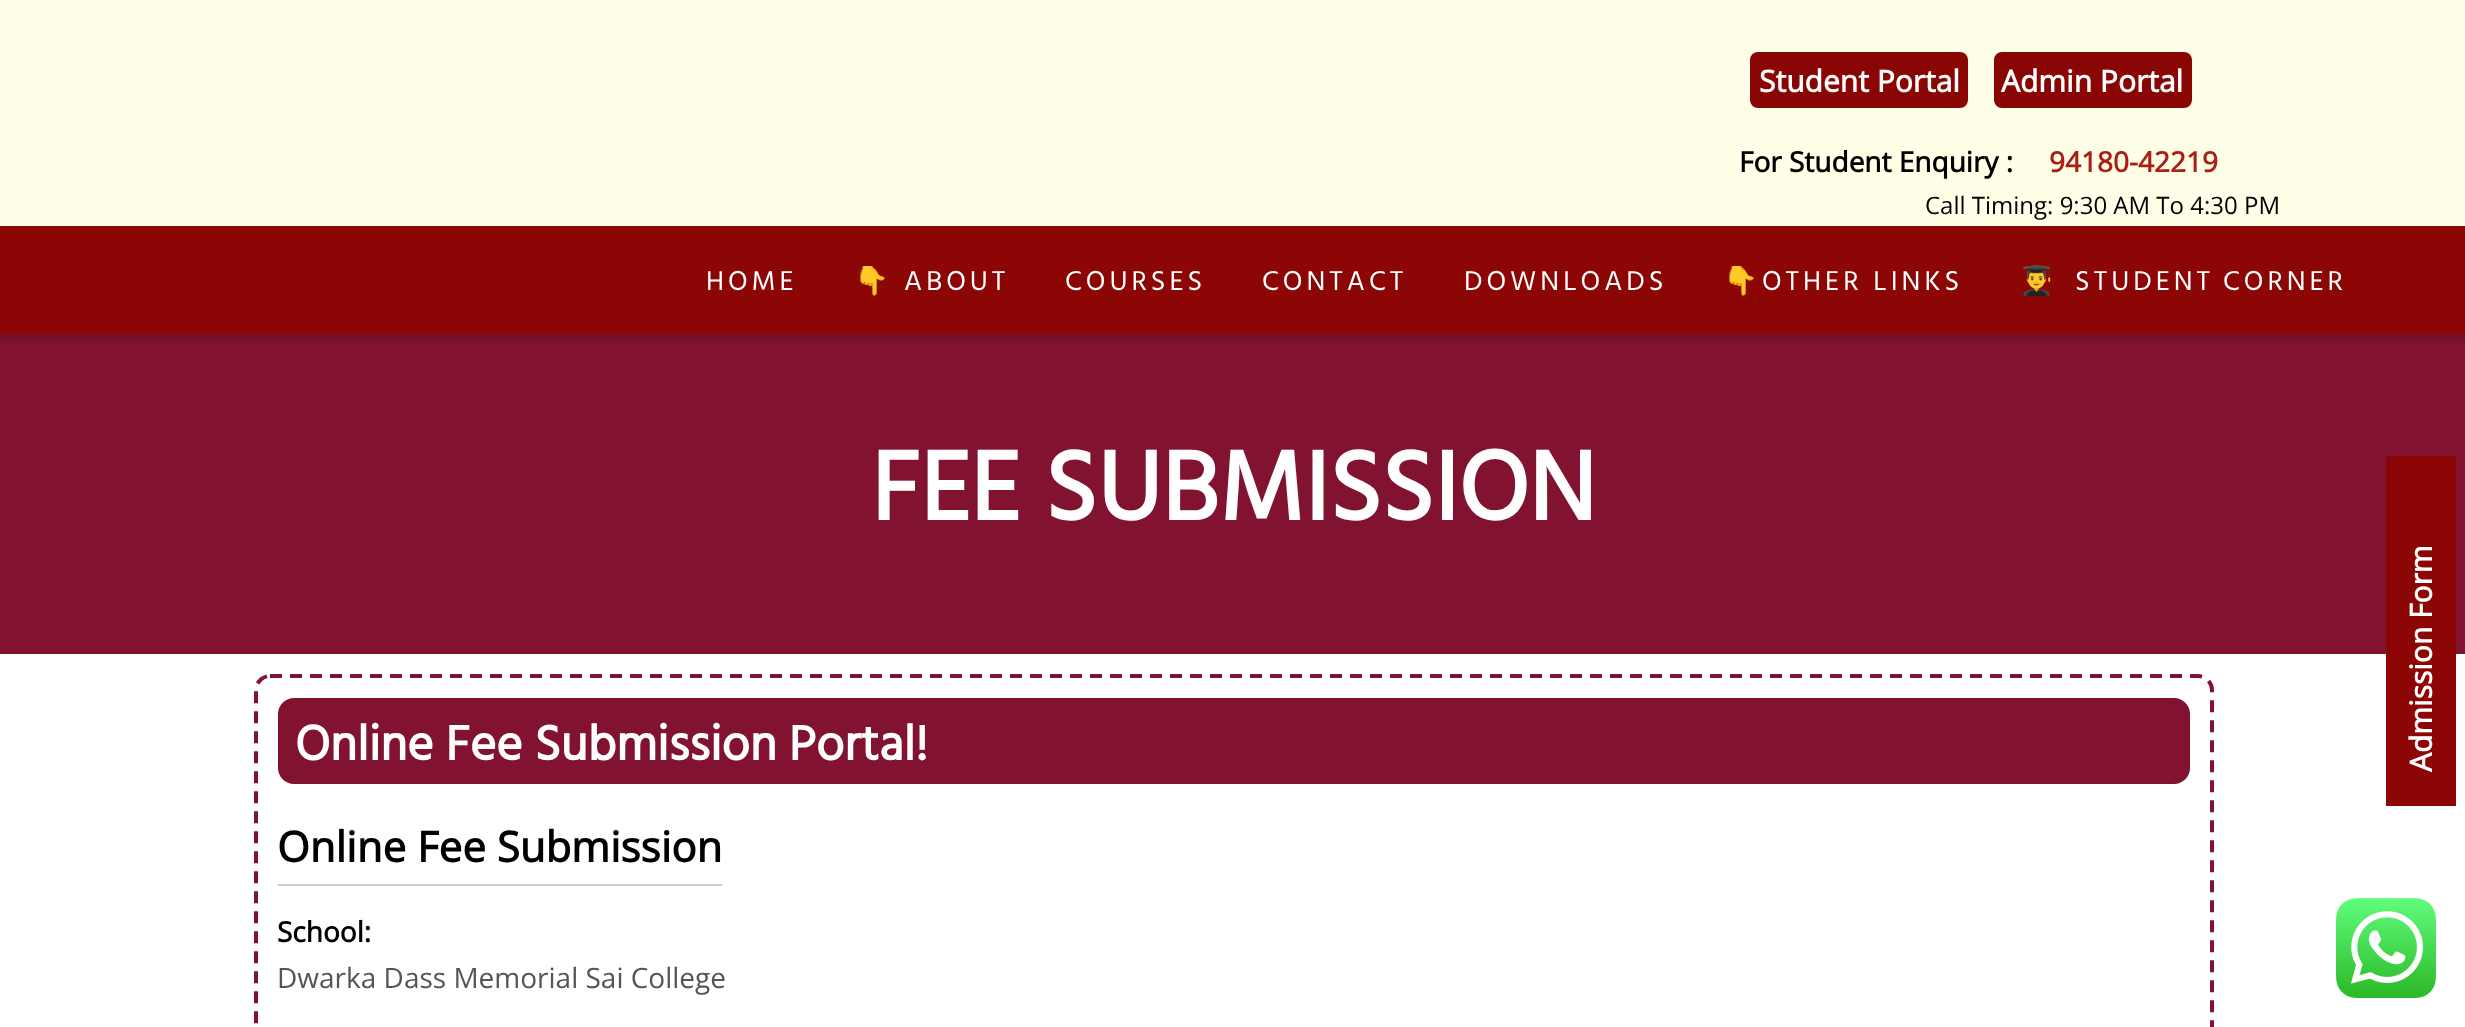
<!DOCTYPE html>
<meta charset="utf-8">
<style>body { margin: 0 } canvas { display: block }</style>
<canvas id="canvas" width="2465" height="1027"></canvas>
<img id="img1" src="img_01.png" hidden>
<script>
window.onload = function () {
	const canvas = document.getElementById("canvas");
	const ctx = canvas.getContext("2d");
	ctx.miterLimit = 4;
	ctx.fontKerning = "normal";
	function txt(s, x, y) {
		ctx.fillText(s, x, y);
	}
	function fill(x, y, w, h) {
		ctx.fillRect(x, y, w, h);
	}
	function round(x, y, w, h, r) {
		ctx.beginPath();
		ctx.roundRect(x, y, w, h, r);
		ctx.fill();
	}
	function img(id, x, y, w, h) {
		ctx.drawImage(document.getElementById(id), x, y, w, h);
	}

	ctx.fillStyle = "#FFFFFF";
	fill(0, 0, 2465, 1027);
	ctx.fillStyle = "#FFFFE8";
	fill(0, 0, 2465, 226);
	ctx.fillStyle = "#8A0604";
	round(1750, 52, 218, 56, 8);
	round(1994, 52, 198, 56, 8);
	ctx.fillStyle = "#8C0605";
	fill(0, 226, 2465, 108);
	ctx.fillStyle = "#74112C";
	fill(0, 334, 2465, 6);
	ctx.fillStyle = "#811331";
	fill(0, 340, 2465, 314);
	ctx.beginPath();
	ctx.moveTo(270, 676);
	ctx.lineTo(2198, 676);
	ctx.bezierCurveTo(2205.5, 676, 2212, 682.5, 2212, 690);
	ctx.lineTo(2212, 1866);
	ctx.bezierCurveTo(2212, 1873.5, 2205.5, 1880, 2198, 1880);
	ctx.lineTo(270, 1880);
	ctx.bezierCurveTo(262.5, 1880, 256, 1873.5, 256, 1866);
	ctx.lineTo(256, 690);
	ctx.bezierCurveTo(256, 682.5, 262.5, 676, 270, 676);
	ctx.closePath();
	ctx.strokeStyle = "#811331";
	ctx.lineWidth = 4;
	ctx.setLineDash([12, 8]);
	ctx.stroke();
	round(278, 698, 1912, 86, 16);
	ctx.fillStyle = "#CCCCCC";
	fill(278, 884, 444, 2);
	ctx.fillStyle = "#8C0605";
	fill(2386, 456, 70, 350);
	img("img1", 2336, 898, 100, 100);
	ctx.font = "bold 30px Open Sans";
	ctx.fillStyle = "#FFFFFF";
	txt("Student Portal", 1759, 92);
	txt("Admin Portal", 2001, 92);
	ctx.font = "bold 28px Open Sans";
	ctx.fillStyle = "#000000";
	txt("For Student Enquiry :", 1739, 172);
	ctx.fillStyle = "#AC1D16";
	txt("94180-42219", 2049, 172);
	ctx.font = "24px Open Sans";
	ctx.fillStyle = "#000000";
	txt("Call Timing: 9:30 AM To 4:30 PM", 1925, 214);
	ctx.letterSpacing = "4px";
	ctx.font = "28px Hind Vadodara";
	ctx.fillStyle = "#FFFFFF";
	txt("HOME", 706, 290);
	ctx.font = "28px Noto Color Emoji";
	txt("👇", 854, 290);
	ctx.font = "28px Hind Vadodara";
	txt("ABOUT", 904, 290);
	txt("COURSES", 1065, 290);
	txt("CONTACT", 1262, 290);
	txt("DOWNLOADS", 1464, 290);
	ctx.font = "28px Noto Color Emoji";
	txt("👇", 1723, 290);
	ctx.font = "28px Hind Vadodara";
	txt("OTHER LINKS", 1762, 290);
	ctx.font = "28px Noto Color Emoji";
	txt("👨‍🎓", 2019, 290);
	ctx.wordSpacing = "-2px";
	ctx.font = "28px Hind Vadodara";
	txt("STUDENT CORNER", 2075, 290);
	ctx.letterSpacing = "0px";
	ctx.wordSpacing = "0px";
	ctx.font = "bold 100px Hind Vadodara";
	txt("FEE SUBMISSION", 871, 520);
	ctx.font = "bold 50px Hind Vadodara";
	txt("Online Fee Submission Portal!", 295, 760);
	ctx.font = "bold 42px Open Sans";
	ctx.fillStyle = "#000000";
	txt("Online Fee Submission", 277, 862);
	ctx.font = "bold 28px Open Sans";
	txt("School:", 277, 942);
	ctx.font = "28px Open Sans";
	ctx.fillStyle = "#555555";
	txt("Dwarka Dass Memorial Sai College", 277, 988);
	ctx.font = "bold 30px Open Sans";
	ctx.fillStyle = "#FFFFFF";
	ctx.save();
	ctx.translate(2432, 772);
	ctx.rotate(-90 * Math.PI / 180);
	ctx.fillText("Admission Form", 0, 0);
	ctx.restore();
};
</script>
